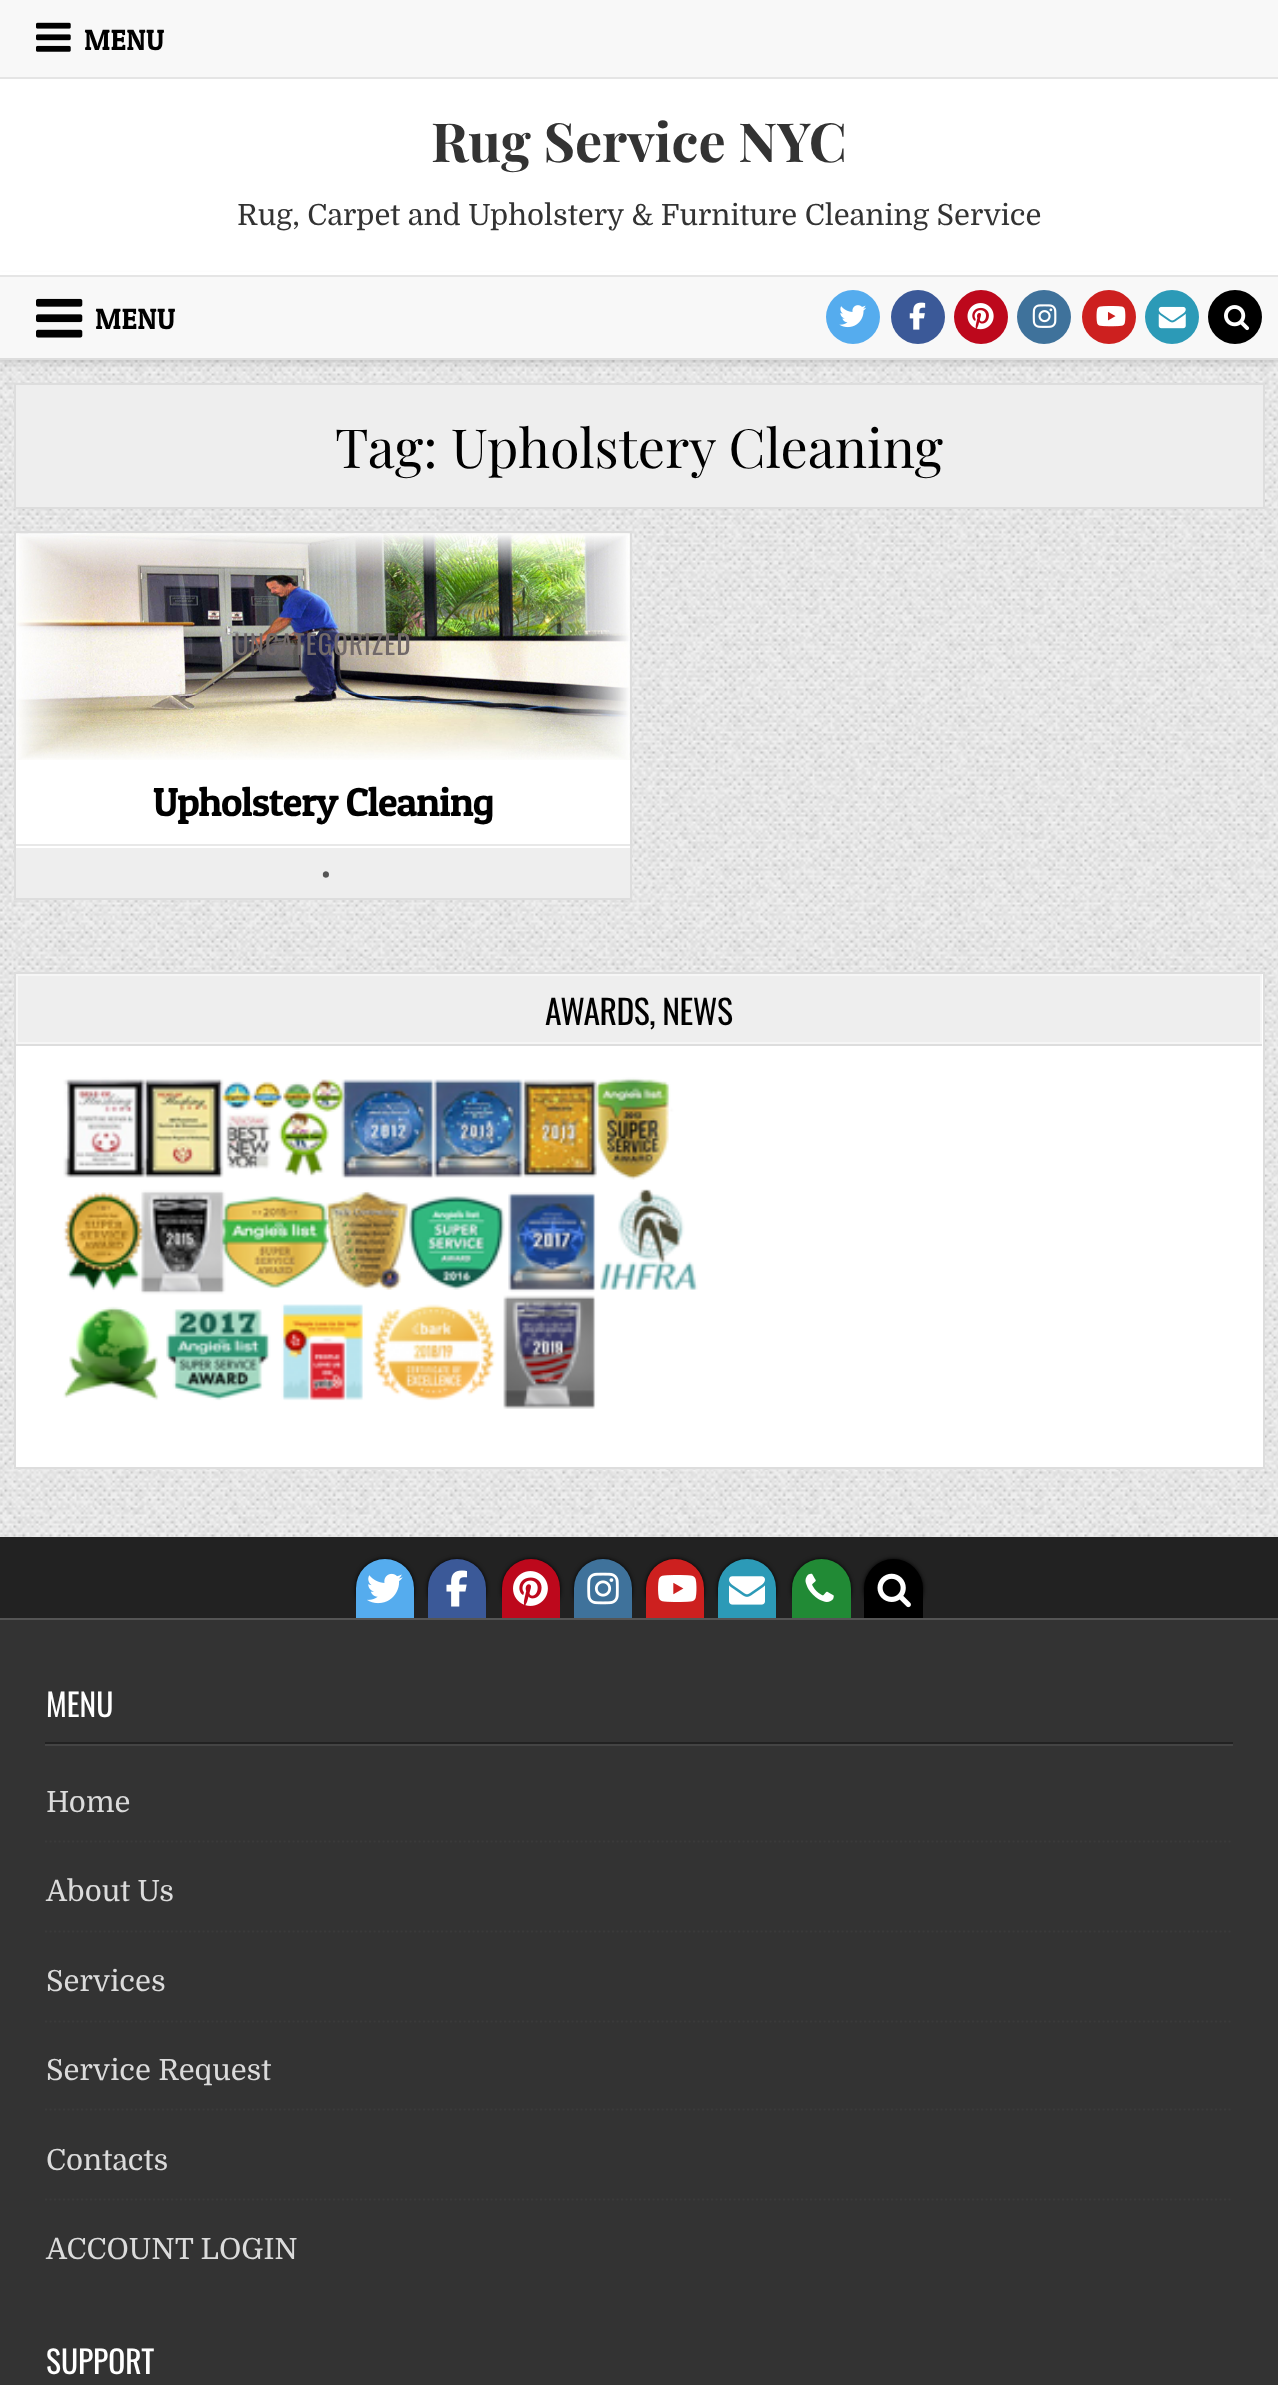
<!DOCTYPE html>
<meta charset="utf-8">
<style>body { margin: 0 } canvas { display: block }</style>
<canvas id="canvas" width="1278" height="2385"></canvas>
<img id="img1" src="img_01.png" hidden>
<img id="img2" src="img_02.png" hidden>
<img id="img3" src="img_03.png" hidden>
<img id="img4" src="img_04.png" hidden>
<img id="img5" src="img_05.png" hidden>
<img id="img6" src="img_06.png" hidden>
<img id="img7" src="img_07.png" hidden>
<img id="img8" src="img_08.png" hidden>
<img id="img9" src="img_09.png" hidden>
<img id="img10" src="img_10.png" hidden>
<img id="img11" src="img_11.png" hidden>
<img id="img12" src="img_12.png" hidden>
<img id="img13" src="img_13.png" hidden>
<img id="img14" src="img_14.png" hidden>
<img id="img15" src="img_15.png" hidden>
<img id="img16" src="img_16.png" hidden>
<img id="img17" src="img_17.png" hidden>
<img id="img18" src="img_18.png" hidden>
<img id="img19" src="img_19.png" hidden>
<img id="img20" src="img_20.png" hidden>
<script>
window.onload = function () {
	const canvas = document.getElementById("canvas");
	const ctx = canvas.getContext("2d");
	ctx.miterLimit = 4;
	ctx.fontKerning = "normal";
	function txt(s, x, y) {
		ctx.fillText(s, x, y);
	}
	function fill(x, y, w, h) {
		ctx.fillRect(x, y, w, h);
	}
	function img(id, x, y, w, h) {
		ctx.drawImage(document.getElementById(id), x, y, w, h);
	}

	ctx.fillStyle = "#FFFFFF";
	fill(0, 0, 1278, 2385);
	img("img1", 0, 360, 1278, 1177);
	ctx.fillStyle = "#F8F8F8";
	fill(0, 0, 1278, 77);
	ctx.fillStyle = "#E5E5E5";
	fill(0, 77, 1278, 2);
	img("img2", 36, 22, 35, 30);
	ctx.fillStyle = "rgba(0, 0, 0, 0.15)";
	ctx.filter = "blur(3.5px)";
	ctx.beginPath();
	ctx.rect(0, 277, 1278, 85);
	ctx.fill();
	ctx.filter = "none";
	ctx.fillStyle = "#FFFFFF";
	fill(0, 272, 1278, 3);
	ctx.fillStyle = "#F8F8F8";
	fill(0, 277, 1278, 81);
	ctx.fillStyle = "#E5E5E5";
	fill(0, 275, 1278, 2);
	ctx.fillStyle = "#DDDDDD";
	fill(0, 358, 1278, 2);
	img("img3", 36, 298, 47, 40);
	ctx.fillStyle = "#55ACEE";
	ctx.beginPath();
	ctx.arc(853, 317, 27, 0, Math.PI * 2);
	ctx.fill();
	img("img4", 839, 305, 28, 23);
	ctx.fillStyle = "#3B5998";
	ctx.beginPath();
	ctx.arc(918, 317, 27, 0, Math.PI * 2);
	ctx.fill();
	img("img5", 909, 302, 17, 28);
	ctx.fillStyle = "#BD081C";
	ctx.beginPath();
	ctx.arc(981, 317, 27, 0, Math.PI * 2);
	ctx.fill();
	img("img6", 967, 303, 27, 27);
	ctx.fillStyle = "#3F729B";
	ctx.beginPath();
	ctx.arc(1044, 317, 27, 0, Math.PI * 2);
	ctx.fill();
	img("img7", 1032, 304, 25, 24);
	ctx.fillStyle = "#CD201F";
	ctx.beginPath();
	ctx.arc(1109, 317, 27, 0, Math.PI * 2);
	ctx.fill();
	img("img8", 1096, 306, 30, 21);
	ctx.fillStyle = "#2C9AB7";
	ctx.beginPath();
	ctx.arc(1172, 317, 27, 0, Math.PI * 2);
	ctx.fill();
	img("img9", 1158, 306, 28, 23);
	ctx.fillStyle = "#000000";
	ctx.beginPath();
	ctx.arc(1235, 317, 27, 0, Math.PI * 2);
	ctx.fill();
	img("img10", 1224, 305, 26, 26);
	ctx.fillStyle = "#EEEEEE";
	ctx.beginPath();
	ctx.rect(15, 384, 1249, 124);
	ctx.fill();
	ctx.strokeStyle = "#DDDDDD";
	ctx.lineWidth = 2;
	ctx.stroke();
	ctx.fillStyle = "#FFFFFF";
	fill(16, 760, 614, 84);
	ctx.strokeRect(15, 532, 616, 367);
	img("img11", 16, 533, 614, 227);
	ctx.fillStyle = "#EEEEEE";
	fill(16, 848, 614, 50);
	ctx.fillStyle = "#E8E8E8";
	fill(16, 844, 614, 2);
	ctx.fillStyle = "#FFFFFF";
	fill(16, 846, 614, 2);
	ctx.beginPath();
	ctx.rect(15, 973, 1249, 495);
	ctx.fill();
	ctx.stroke();
	ctx.fillStyle = "#DDDDDD";
	fill(16, 1044, 1246, 2);
	ctx.fillStyle = "#EEEEEE";
	ctx.beginPath();
	ctx.rect(17, 975, 1244, 68);
	ctx.fill();
	ctx.strokeStyle = "#F6F6F6";
	ctx.stroke();
	img("img12", 63, 1077, 635, 332);
	ctx.fillStyle = "#222222";
	fill(0, 1537, 1278, 81);
	ctx.fillStyle = "#000000";
	ctx.filter = "blur(2px)";
	ctx.beginPath();
	ctx.roundRect(356, 1559, 58, 59, 29);
	ctx.fill();
	ctx.filter = "none";
	ctx.fillStyle = "#55ACEE";
	ctx.beginPath();
	ctx.roundRect(356, 1559, 58, 59, [29, 29, 0, 0]);
	ctx.fill();
	img("img13", 367, 1573, 36, 31);
	ctx.fillStyle = "#000000";
	ctx.filter = "blur(2px)";
	ctx.beginPath();
	ctx.roundRect(428, 1559, 58, 59, 29);
	ctx.fill();
	ctx.filter = "none";
	ctx.fillStyle = "#3B5998";
	ctx.beginPath();
	ctx.roundRect(428, 1559, 58, 59, [29, 29, 0, 0]);
	ctx.fill();
	img("img14", 446, 1570, 21, 37);
	ctx.fillStyle = "#000000";
	ctx.filter = "blur(2px)";
	ctx.beginPath();
	ctx.roundRect(502, 1559, 58, 59, 29);
	ctx.fill();
	ctx.filter = "none";
	ctx.fillStyle = "#BD081C";
	ctx.beginPath();
	ctx.roundRect(502, 1559, 58, 59, [29, 29, 0, 0]);
	ctx.fill();
	img("img15", 513, 1571, 35, 35);
	ctx.fillStyle = "#000000";
	ctx.filter = "blur(2px)";
	ctx.beginPath();
	ctx.roundRect(574, 1559, 58, 59, 29);
	ctx.fill();
	ctx.filter = "none";
	ctx.fillStyle = "#3F729B";
	ctx.beginPath();
	ctx.roundRect(574, 1559, 58, 59, [29, 29, 0, 0]);
	ctx.fill();
	img("img16", 587, 1572, 32, 33);
	ctx.fillStyle = "#000000";
	ctx.filter = "blur(2px)";
	ctx.beginPath();
	ctx.roundRect(646, 1559, 58, 59, 29);
	ctx.fill();
	ctx.filter = "none";
	ctx.fillStyle = "#CD201F";
	ctx.beginPath();
	ctx.roundRect(646, 1559, 58, 59, [29, 29, 0, 0]);
	ctx.fill();
	img("img17", 658, 1575, 39, 27);
	ctx.fillStyle = "#000000";
	ctx.filter = "blur(2px)";
	ctx.beginPath();
	ctx.roundRect(718, 1559, 58, 59, 29);
	ctx.fill();
	ctx.filter = "none";
	ctx.fillStyle = "#2C9AB7";
	ctx.beginPath();
	ctx.roundRect(718, 1559, 58, 59, [29, 29, 0, 0]);
	ctx.fill();
	img("img18", 729, 1576, 36, 29);
	ctx.fillStyle = "#000000";
	ctx.filter = "blur(2px)";
	ctx.beginPath();
	ctx.roundRect(792, 1559, 59, 59, 29.5);
	ctx.fill();
	ctx.filter = "none";
	ctx.fillStyle = "#218A35";
	ctx.beginPath();
	ctx.roundRect(792, 1559, 59, 59, [29.5, 29.5, 0, 0]);
	ctx.fill();
	img("img19", 805, 1573, 29, 29);
	ctx.fillStyle = "#000000";
	ctx.filter = "blur(2px)";
	ctx.beginPath();
	ctx.roundRect(864, 1559, 59, 59, 29.5);
	ctx.fill();
	ctx.filter = "none";
	ctx.beginPath();
	ctx.roundRect(864, 1559, 59, 59, [29.5, 29.5, 0, 0]);
	ctx.fill();
	img("img20", 877, 1573, 34, 35);
	ctx.fillStyle = "#333333";
	fill(0, 1620, 1278, 765);
	ctx.fillStyle = "#555555";
	fill(0, 1618, 1278, 2);
	ctx.fillStyle = "#444444";
	fill(45, 1744, 1188, 2);
	ctx.fillStyle = "#222222";
	fill(45, 1742, 1188, 2);
	ctx.beginPath();
	ctx.moveTo(45, 1841.5);
	ctx.lineTo(1233, 1841.5);
	ctx.strokeStyle = "#3A3A3A";
	ctx.lineWidth = 2.2;
	ctx.setLineDash([2.25, 2.25]);
	ctx.stroke();
	ctx.beginPath();
	ctx.moveTo(45, 1931.5);
	ctx.lineTo(1233, 1931.5);
	ctx.stroke();
	ctx.beginPath();
	ctx.moveTo(45, 2021.5);
	ctx.lineTo(1233, 2021.5);
	ctx.stroke();
	ctx.beginPath();
	ctx.moveTo(45, 2109.5);
	ctx.lineTo(1233, 2109.5);
	ctx.stroke();
	ctx.beginPath();
	ctx.moveTo(45, 2199.5);
	ctx.lineTo(1233, 2199.5);
	ctx.stroke();
	ctx.font = "29.25px Patua One";
	ctx.fillStyle = "#000000";
	txt("MENU", 84, 50);
	ctx.font = "bold 54px Playfair Display";
	ctx.fillStyle = "#333333";
	txt("Rug Service NYC", 431, 162);
	ctx.font = "29.25px Domine";
	txt("Rug, Carpet and Upholstery & Furniture Cleaning Service", 237, 225);
	ctx.font = "29.25px Patua One";
	ctx.fillStyle = "#000000";
	txt("MENU", 95, 329);
	ctx.font = "54px Playfair Display";
	txt("Tag: Upholstery Cleaning", 335, 468);
	ctx.letterSpacing = "1.1px";
	ctx.font = "27px Oswald";
	ctx.fillStyle = "#716969";
	txt("UNCATEGORIZED", 234, 655);
	ctx.letterSpacing = "-1.1px";
	ctx.font = "40.5px Patua One";
	ctx.fillStyle = "#000000";
	txt("Upholstery Cleaning", 153, 816);
	ctx.letterSpacing = "0px";
	ctx.font = "27px Oswald";
	ctx.fillStyle = "#555555";
	txt("•", 321, 885);
	ctx.letterSpacing = "-0.5px";
	ctx.font = "33.75px Oswald";
	ctx.fillStyle = "#000000";
	txt("AWARDS, NEWS", 545, 1025);
	ctx.letterSpacing = "0px";
	ctx.font = "31.5px Oswald";
	ctx.fillStyle = "#FFFFFF";
	txt("MENU", 46, 1717);
	ctx.font = "29.25px Domine";
	ctx.fillStyle = "#DBDBDB";
	txt("Home", 46, 1812);
	txt("About Us", 46, 1901);
	txt("Services", 46, 1991);
	txt("Service Request", 46, 2080);
	txt("Contacts", 46, 2170);
	txt("ACCOUNT LOGIN", 46, 2259);
	ctx.font = "31.5px Oswald";
	ctx.fillStyle = "#FFFFFF";
	txt("SUPPORT", 46, 2374);
};
</script>
